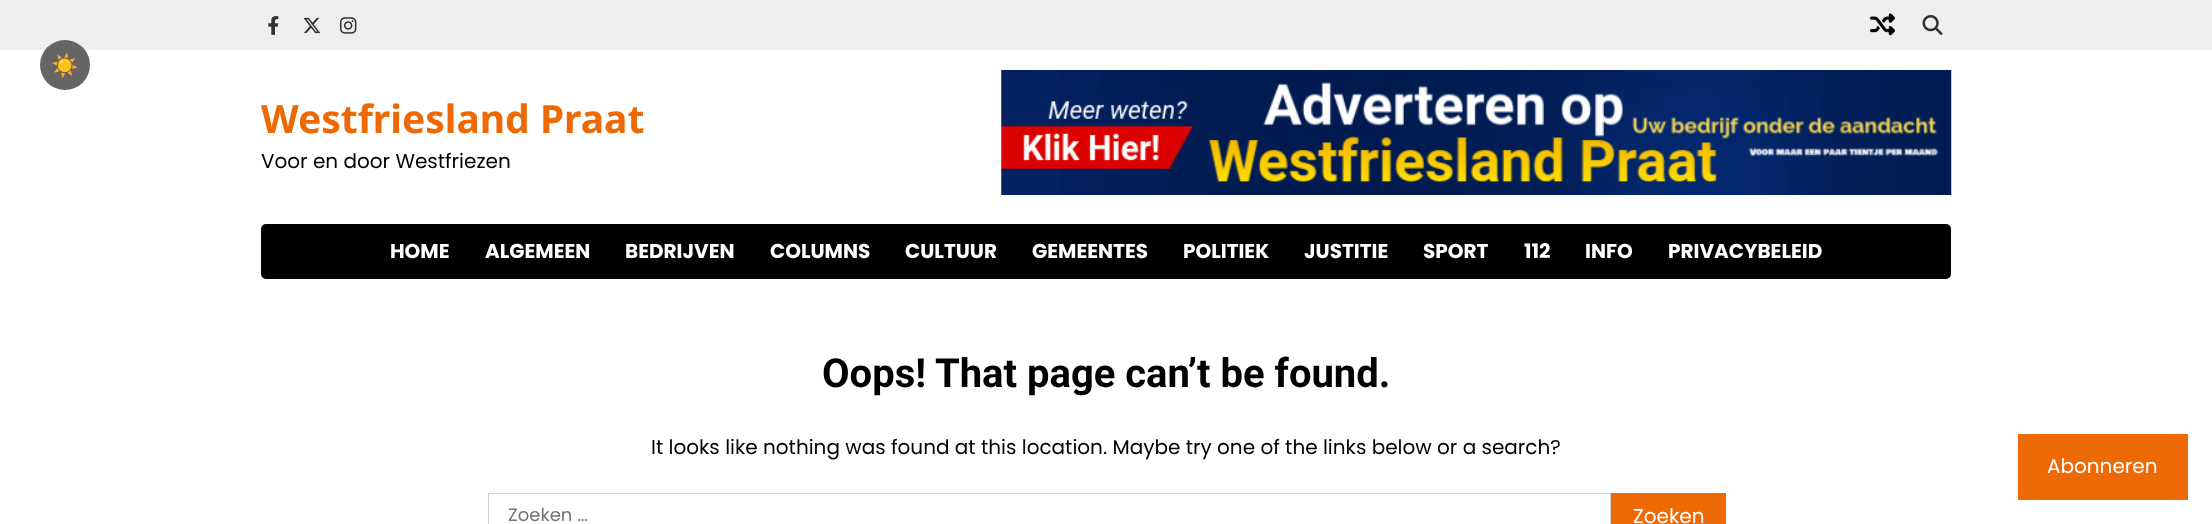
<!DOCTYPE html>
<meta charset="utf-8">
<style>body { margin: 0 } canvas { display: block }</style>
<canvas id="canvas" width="2212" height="524"></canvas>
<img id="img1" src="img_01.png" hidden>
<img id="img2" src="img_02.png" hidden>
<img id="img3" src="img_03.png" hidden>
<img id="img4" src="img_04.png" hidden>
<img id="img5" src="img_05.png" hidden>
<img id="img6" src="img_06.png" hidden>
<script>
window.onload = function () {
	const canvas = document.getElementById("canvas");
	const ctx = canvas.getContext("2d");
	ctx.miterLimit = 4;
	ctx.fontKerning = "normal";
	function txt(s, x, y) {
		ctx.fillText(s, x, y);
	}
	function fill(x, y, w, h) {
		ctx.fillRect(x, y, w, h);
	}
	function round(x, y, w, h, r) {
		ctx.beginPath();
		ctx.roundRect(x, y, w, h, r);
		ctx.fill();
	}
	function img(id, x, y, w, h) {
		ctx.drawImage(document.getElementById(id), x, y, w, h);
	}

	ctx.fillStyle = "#FFFFFF";
	fill(0, 0, 2212, 524);
	ctx.fillStyle = "#EEEEEE";
	fill(0, 0, 2212, 50);
	ctx.fillStyle = "#656565";
	ctx.beginPath();
	ctx.arc(65, 65, 25, 0, Math.PI * 2);
	ctx.fill();
	img("img1", 268, 16, 11, 19);
	img("img2", 303, 17, 18, 17);
	img("img3", 340, 17, 17, 17);
	img("img4", 1870, 13, 25, 23);
	img("img5", 1922, 15, 21, 20);
	img("img6", 1001, 70, 951, 125);
	ctx.fillStyle = "#000000";
	round(261, 224, 1690, 55, 5);
	ctx.strokeStyle = "#D3CED2";
	ctx.strokeRect(488.5, 493.5, 1122, 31);
	ctx.fillStyle = "#ED6904";
	fill(1611, 493, 115, 31);
	fill(2018, 434, 170, 66);
	ctx.font = "bold 22px Noto Color Emoji";
	ctx.fillStyle = "#EEEEEE";
	txt("☀️", 51, 73);
	ctx.font = "bold 39px Noto Sans";
	ctx.fillStyle = "#ED6904";
	txt("Westfriesland Praat", 261, 133);
	ctx.font = "20px Poppins";
	ctx.fillStyle = "#000000";
	txt("Voor en door Westfriezen", 261, 168);
	ctx.font = "bold 20px Poppins";
	ctx.fillStyle = "#FFFFFF";
	txt("HOME", 390, 258);
	txt("ALGEMEEN", 485, 258);
	txt("BEDRIJVEN", 625, 258);
	txt("COLUMNS", 770, 258);
	txt("CULTUUR", 905, 258);
	txt("GEMEENTES", 1032, 258);
	txt("POLITIEK", 1183, 258);
	txt("JUSTITIE", 1304, 258);
	txt("SPORT", 1423, 258);
	txt("112", 1524, 258);
	txt("INFO", 1585, 258);
	txt("PRIVACYBELEID", 1668, 258);
	ctx.font = "bold 40px Roboto";
	ctx.fillStyle = "#000000";
	txt("Oops! That page can’t be found.", 822, 387);
	ctx.font = "20px Poppins";
	txt("It looks like nothing was found at this location. Maybe try one of the links below or a search?", 651, 454);
	ctx.font = "18px Poppins";
	ctx.fillStyle = "#757575";
	txt("Zoeken …", 508, 521);
	ctx.font = "20px Poppins";
	ctx.fillStyle = "#FFFFFF";
	txt("Zoeken", 1633, 523);
	txt("Abonneren", 2047, 473);
};
</script>
